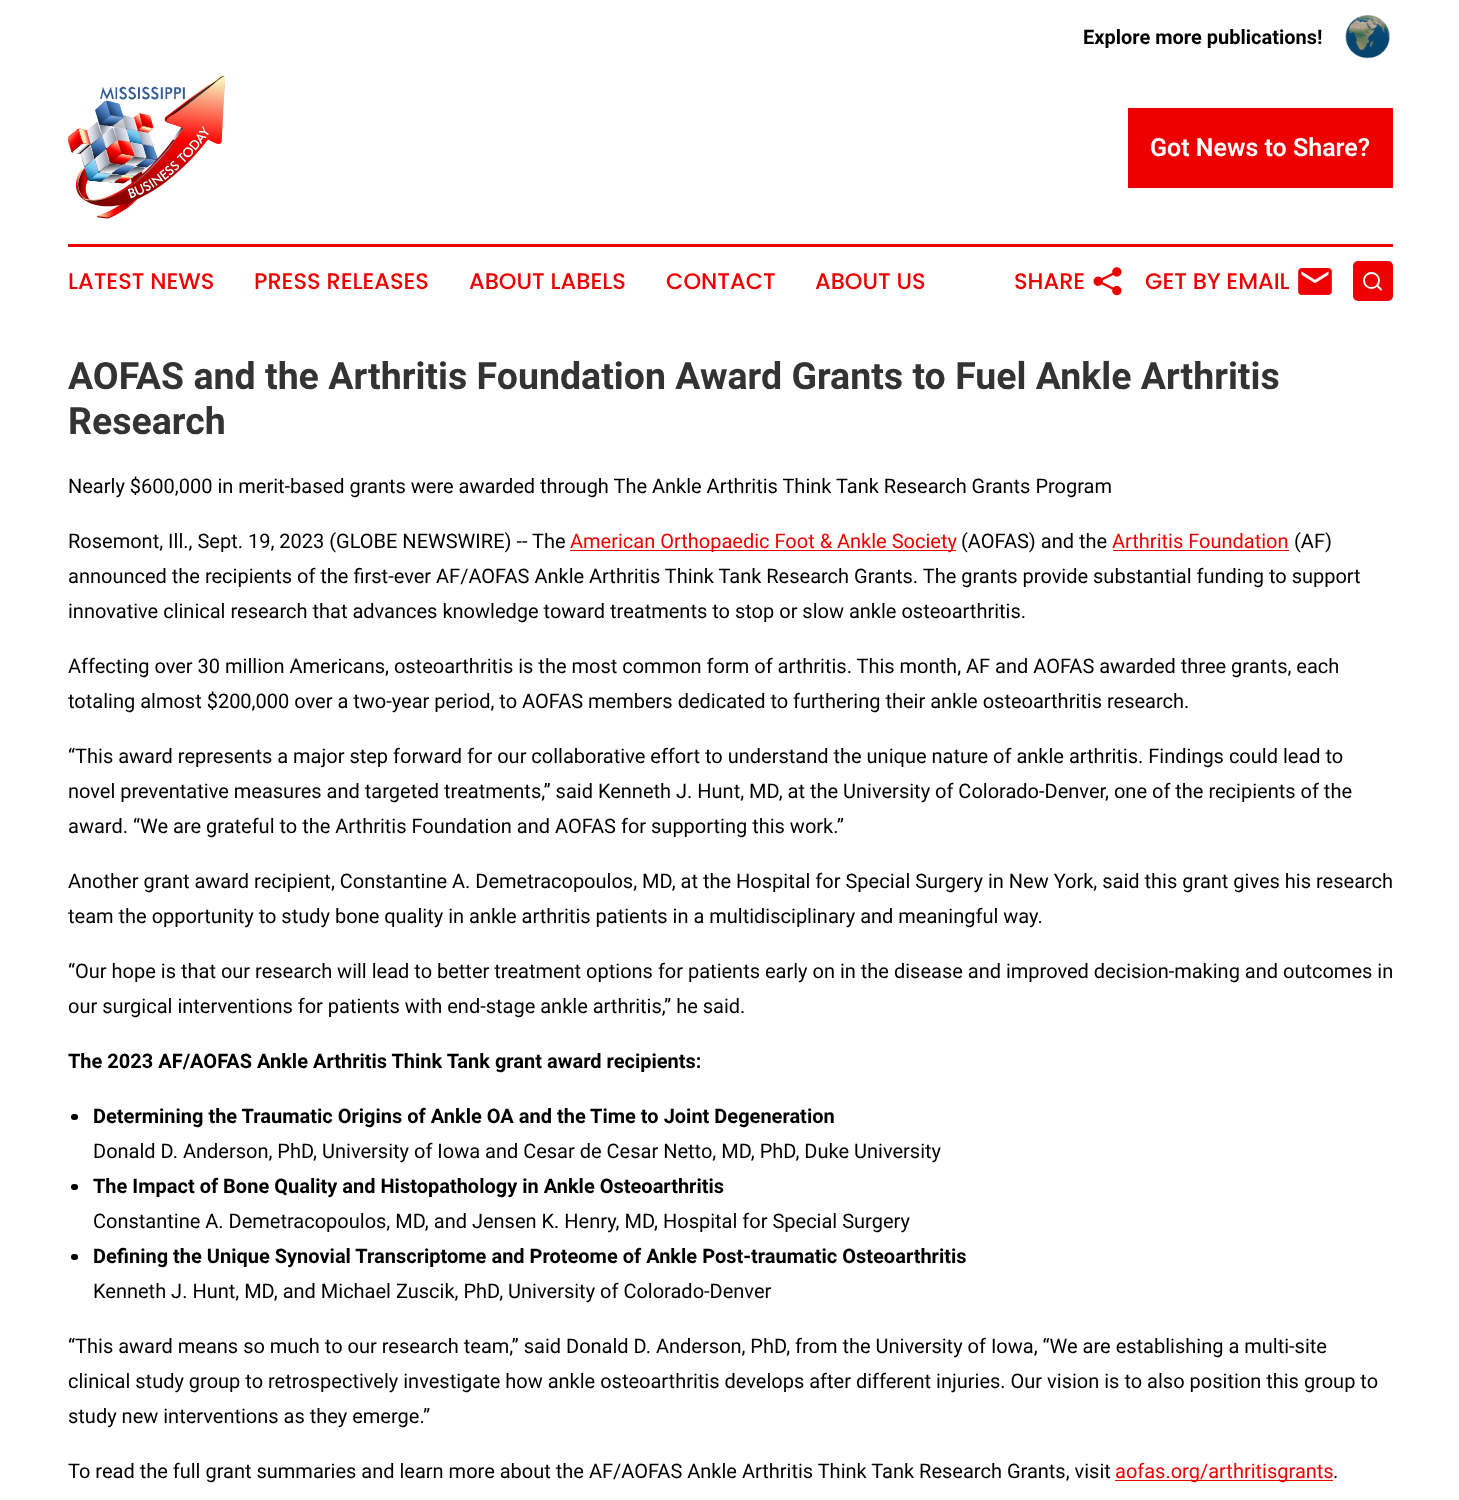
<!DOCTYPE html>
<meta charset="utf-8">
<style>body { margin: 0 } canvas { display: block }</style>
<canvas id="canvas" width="1459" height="1500"></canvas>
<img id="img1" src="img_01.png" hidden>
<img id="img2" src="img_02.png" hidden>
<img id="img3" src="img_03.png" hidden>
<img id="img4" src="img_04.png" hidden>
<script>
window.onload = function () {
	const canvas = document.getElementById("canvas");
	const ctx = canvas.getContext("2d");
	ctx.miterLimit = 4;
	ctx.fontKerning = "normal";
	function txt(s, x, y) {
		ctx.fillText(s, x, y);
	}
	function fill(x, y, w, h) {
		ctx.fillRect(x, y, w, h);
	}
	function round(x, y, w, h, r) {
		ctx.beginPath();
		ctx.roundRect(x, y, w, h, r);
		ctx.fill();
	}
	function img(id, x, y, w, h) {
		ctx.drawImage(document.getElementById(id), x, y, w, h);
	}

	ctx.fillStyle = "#FFFFFF";
	fill(0, 0, 1459, 1500);
	img("img1", 1345, 15, 45, 44);
	img("img2", 68, 75, 157, 144);
	ctx.fillStyle = "#EF0000";
	fill(1128, 108, 265, 80);
	fill(68, 244, 1325, 3);
	img("img3", 1093, 267, 29, 29);
	img("img4", 1298, 268, 34, 27);
	round(1353, 261, 40, 40, 5);
	ctx.beginPath();
	ctx.arc(1371.5, 280.5, 7.5, 0, Math.PI * 2);
	ctx.strokeStyle = "#FFFFFF";
	ctx.lineWidth = 1.9;
	ctx.stroke();
	ctx.beginPath();
	ctx.moveTo(1381, 289.5);
	ctx.lineTo(1377, 285.5);
	ctx.lineCap = "round";
	ctx.lineJoin = "round";
	ctx.stroke();
	fill(570, 550, 386, 1);
	fill(1113, 550, 176, 1);
	ctx.fillStyle = "#000000";
	round(71, 1114, 7, 6, 3);
	round(71, 1184, 7, 6, 3);
	round(71, 1254, 7, 6, 3);
	ctx.fillStyle = "#EF0000";
	fill(1115, 1480, 218, 1);
	ctx.font = "bold 20px Roboto";
	ctx.fillStyle = "#000000";
	txt("Explore more publications!", 1083, 44);
	ctx.font = "600 25px Roboto";
	ctx.fillStyle = "#FFFFFF";
	txt("Got News to Share?", 1150, 156);
	ctx.font = "500 22.5px Poppins";
	ctx.fillStyle = "#EF0000";
	txt("LATEST NEWS", 68, 289);
	txt("PRESS RELEASES", 254, 289);
	txt("ABOUT LABELS", 469, 289);
	txt("CONTACT", 666, 289);
	txt("ABOUT US", 815, 289);
	txt("SHARE", 1014, 289);
	txt("GET BY EMAIL", 1145, 289);
	ctx.font = "bold 37.5px Roboto";
	ctx.fillStyle = "#333333";
	txt("AOFAS and the Arthritis Foundation Award Grants to Fuel Ankle Arthritis", 68, 389);
	txt("Research", 68, 434);
	ctx.font = "20px Roboto";
	ctx.fillStyle = "#000000";
	txt("Nearly $600,000 in merit-based grants were awarded through The Ankle Arthritis Think Tank Research Grants Program", 68, 493);
	txt("Rosemont, Ill., Sept. 19, 2023 (GLOBE NEWSWIRE) -- The", 68, 548);
	ctx.fillStyle = "#EF0000";
	txt("American Orthopaedic Foot & Ankle Society", 570, 548);
	ctx.fillStyle = "#000000";
	txt("(AOFAS) and the", 961, 548);
	ctx.fillStyle = "#EF0000";
	txt("Arthritis Foundation", 1112, 548);
	ctx.fillStyle = "#000000";
	txt("(AF)", 1294, 548);
	txt("announced the recipients of the first-ever AF/AOFAS Ankle Arthritis Think Tank Research Grants. The grants provide substantial funding to support", 68, 583);
	txt("innovative clinical research that advances knowledge toward treatments to stop or slow ankle osteoarthritis.", 68, 618);
	txt("Affecting over 30 million Americans, osteoarthritis is the most common form of arthritis. This month, AF and AOFAS awarded three grants, each", 68, 673);
	txt("totaling almost $200,000 over a two-year period, to AOFAS members dedicated to furthering their ankle osteoarthritis research.", 68, 708);
	txt("“This award represents a major step forward for our collaborative effort to understand the unique nature of ankle arthritis. Findings could lead to", 68, 763);
	txt("novel preventative measures and targeted treatments,” said Kenneth J. Hunt, MD, at the University of Colorado-Denver, one of the recipients of the", 68, 798);
	txt("award. “We are grateful to the Arthritis Foundation and AOFAS for supporting this work.”", 68, 833);
	txt("Another grant award recipient, Constantine A. Demetracopoulos, MD, at the Hospital for Special Surgery in New York, said this grant gives his research", 68, 888);
	txt("team the opportunity to study bone quality in ankle arthritis patients in a multidisciplinary and meaningful way.", 68, 923);
	txt("“Our hope is that our research will lead to better treatment options for patients early on in the disease and improved decision-making and outcomes in", 68, 978);
	txt("our surgical interventions for patients with end-stage ankle arthritis,” he said.", 68, 1013);
	ctx.font = "bold 20px Roboto";
	txt("The 2023 AF/AOFAS Ankle Arthritis Think Tank grant award recipients:", 68, 1068);
	txt("Determining the Traumatic Origins of Ankle OA and the Time to Joint Degeneration", 93, 1123);
	ctx.font = "20px Roboto";
	txt("Donald D. Anderson, PhD, University of Iowa and Cesar de Cesar Netto, MD, PhD, Duke University", 93, 1158);
	ctx.font = "bold 20px Roboto";
	txt("The Impact of Bone Quality and Histopathology in Ankle Osteoarthritis", 93, 1193);
	ctx.font = "20px Roboto";
	txt("Constantine A. Demetracopoulos, MD, and Jensen K. Henry, MD, Hospital for Special Surgery", 93, 1228);
	ctx.font = "bold 20px Roboto";
	txt("Defining the Unique Synovial Transcriptome and Proteome of Ankle Post-traumatic Osteoarthritis", 93, 1263);
	ctx.font = "20px Roboto";
	txt("Kenneth J. Hunt, MD, and Michael Zuscik, PhD, University of Colorado-Denver", 93, 1298);
	txt("“This award means so much to our research team,” said Donald D. Anderson, PhD, from the University of Iowa, “We are establishing a multi-site", 68, 1353);
	txt("clinical study group to retrospectively investigate how ankle osteoarthritis develops after different injuries. Our vision is to also position this group to", 68, 1388);
	txt("study new interventions as they emerge.”", 68, 1423);
	txt("To read the full grant summaries and learn more about the AF/AOFAS Ankle Arthritis Think Tank Research Grants, visit", 68, 1478);
	ctx.fillStyle = "#EF0000";
	txt("aofas.org/arthritisgrants", 1115, 1478);
	ctx.fillStyle = "#000000";
	txt(".", 1333, 1478);
};
</script>
